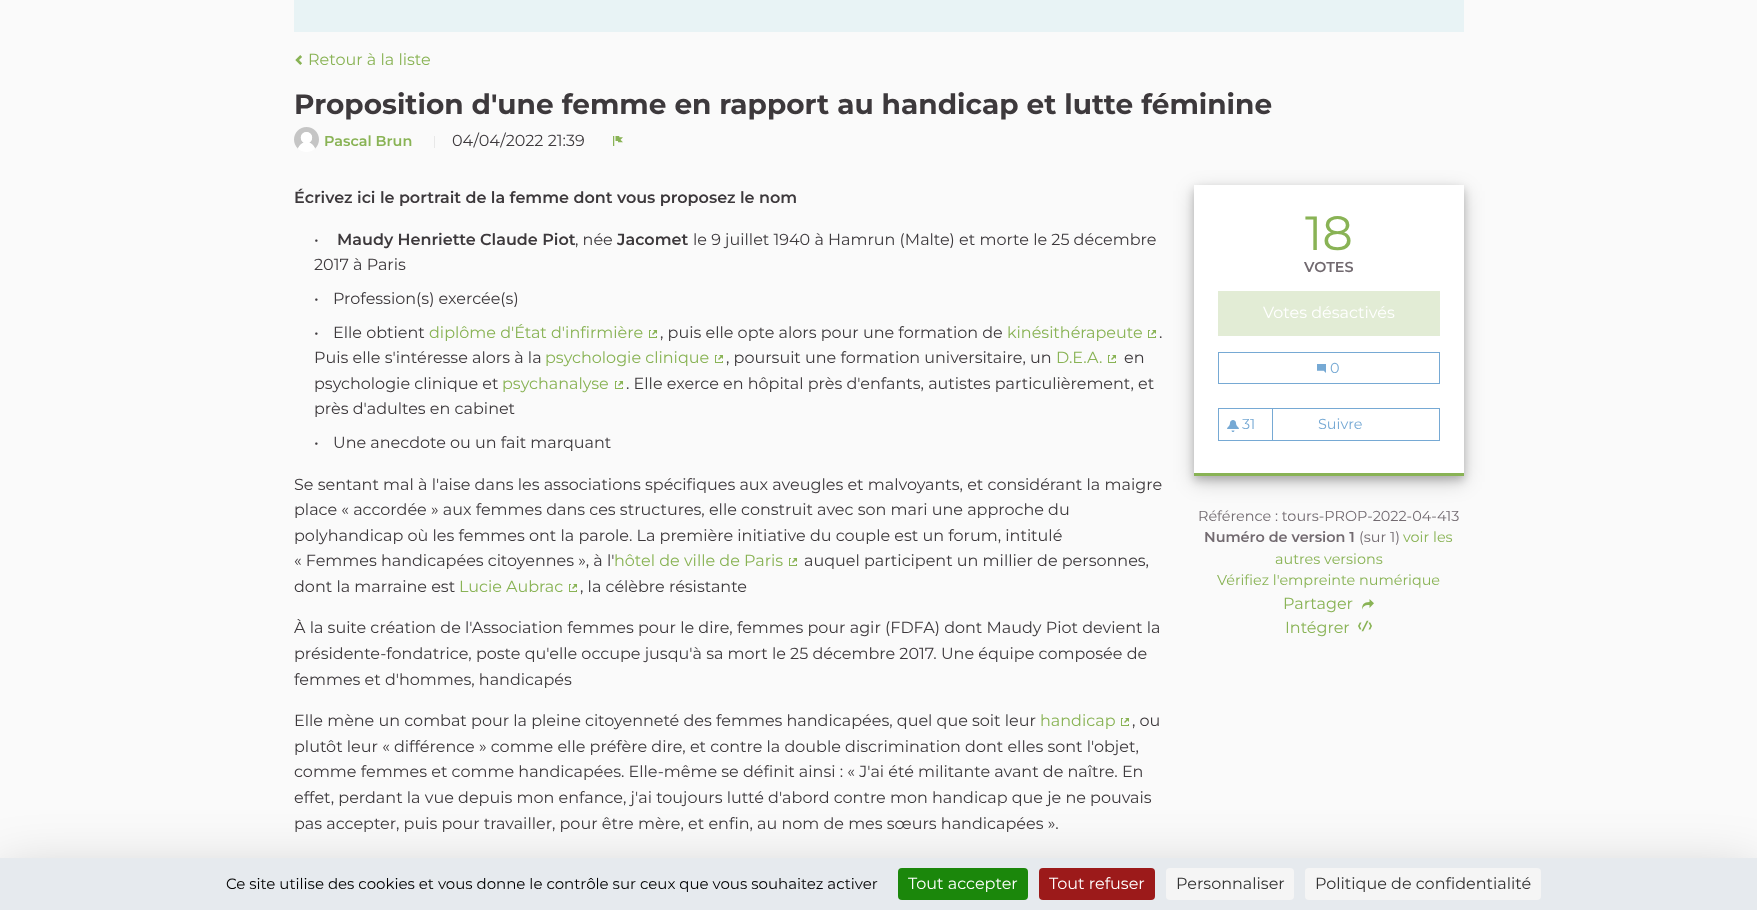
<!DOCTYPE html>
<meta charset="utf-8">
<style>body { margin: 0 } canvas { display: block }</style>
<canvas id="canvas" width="1757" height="910"></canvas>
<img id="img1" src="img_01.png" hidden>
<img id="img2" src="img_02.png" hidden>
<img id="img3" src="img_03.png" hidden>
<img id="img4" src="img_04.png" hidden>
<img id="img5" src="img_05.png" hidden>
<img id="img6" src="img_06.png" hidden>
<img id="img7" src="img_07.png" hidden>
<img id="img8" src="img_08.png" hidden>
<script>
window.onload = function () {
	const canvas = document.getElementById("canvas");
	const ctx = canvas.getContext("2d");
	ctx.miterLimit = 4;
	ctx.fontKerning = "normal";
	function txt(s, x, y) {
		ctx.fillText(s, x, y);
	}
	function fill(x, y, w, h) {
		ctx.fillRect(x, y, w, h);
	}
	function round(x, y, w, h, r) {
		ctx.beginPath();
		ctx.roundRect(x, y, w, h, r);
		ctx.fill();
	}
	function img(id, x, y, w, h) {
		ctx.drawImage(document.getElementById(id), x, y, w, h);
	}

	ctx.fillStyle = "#FAFAFA";
	fill(0, 0, 1757, 910);
	ctx.fillStyle = "#E8F3F5";
	fill(294, 0, 1170, 32);
	img("img1", 295, 55, 7, 10);
	img("img2", 294, 127, 25, 25);
	ctx.fillStyle = "#E8E8E8";
	fill(434, 136, 1, 12);
	img("img3", 613, 136, 10, 10);
	img("img4", 649, 330, 8, 8);
	img("img4", 1148, 330, 8, 8);
	img("img4", 715, 355, 8, 8);
	img("img4", 1108, 355, 8, 8);
	img("img4", 615, 381, 8, 8);
	img("img4", 789, 558, 8, 8);
	img("img4", 569, 584, 8, 8);
	img("img4", 1121, 718, 8, 8);
	ctx.fillStyle = "rgba(0, 0, 0, 0.19)";
	ctx.filter = "blur(10px)";
	ctx.beginPath();
	ctx.rect(1194, 191, 270, 291);
	ctx.fill();
	ctx.filter = "none";
	ctx.fillStyle = "rgba(0, 0, 0, 0.2)";
	ctx.filter = "blur(4px)";
	ctx.beginPath();
	ctx.rect(1194, 189, 270, 291);
	ctx.fill();
	ctx.filter = "none";
	ctx.fillStyle = "#FFFFFF";
	fill(1194, 185, 270, 288);
	ctx.fillStyle = "#89B355";
	fill(1194, 473, 270, 3);
	ctx.fillStyle = "#E2ECD5";
	fill(1218, 291, 222, 45);
	ctx.strokeStyle = "#76A9D4";
	ctx.strokeRect(1218.5, 352.5, 221, 31);
	img("img5", 1317, 364, 9, 9);
	ctx.strokeRect(1218.5, 408.5, 221, 32);
	ctx.fillStyle = "#76A9D4";
	fill(1272, 409, 1, 31);
	img("img6", 1227, 420, 12, 12);
	img("img7", 1362, 599, 12, 11);
	img("img8", 1358, 620, 14, 12);
	ctx.fillStyle = "rgba(0, 0, 0, 0.25)";
	ctx.filter = "blur(30px)";
	ctx.beginPath();
	ctx.rect(0, 878, 1757, 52);
	ctx.fill();
	ctx.filter = "none";
	ctx.fillStyle = "#E6EAEE";
	fill(0, 858, 1757, 52);
	ctx.fillStyle = "#1B870B";
	round(898, 868, 130, 32, 4);
	ctx.fillStyle = "#9C1A1A";
	round(1039, 868, 116, 32, 4);
	ctx.fillStyle = "#F5F5F5";
	round(1166, 868, 128, 32, 4);
	round(1305, 868, 236, 32, 4);
	ctx.font = "16px Montserrat";
	ctx.fillStyle = "#89B355";
	txt("Retour à la liste", 308, 65);
	ctx.font = "bold 28px Montserrat";
	ctx.fillStyle = "#3D393C";
	txt("Proposition d'une femme en rapport au handicap et lutte féminine", 294, 114);
	ctx.font = "600 14.4px Montserrat";
	ctx.fillStyle = "#89B355";
	txt("Pascal Brun", 324, 146);
	ctx.font = "16px Montserrat";
	ctx.fillStyle = "#3D393C";
	txt("04/04/2022 21:39", 452, 146);
	ctx.font = "600 16px Montserrat";
	txt("Écrivez ici le portrait de la femme dont vous proposez le nom", 294, 203);
	ctx.font = "16px Montserrat";
	txt("•", 314, 245);
	ctx.font = "600 16px Montserrat";
	txt("Maudy Henriette Claude Piot", 337, 245);
	ctx.font = "16px Montserrat";
	txt(", née", 575, 245);
	ctx.font = "600 16px Montserrat";
	txt("Jacomet", 617, 245);
	ctx.font = "16px Montserrat";
	txt("le 9 juillet 1940 à Hamrun (Malte) et morte le 25 décembre", 693, 245);
	txt("2017 à Paris", 314, 270);
	txt("•", 314, 304);
	txt("Profession(s) exercée(s)", 333, 304);
	txt("•", 314, 338);
	txt("Elle obtient", 333, 338);
	ctx.fillStyle = "#89B355";
	txt("diplôme d'État d'infirmière", 429, 338);
	ctx.fillStyle = "#3D393C";
	txt(", puis elle opte alors pour une formation de", 660, 338);
	ctx.fillStyle = "#89B355";
	txt("kinésithérapeute", 1007, 338);
	ctx.fillStyle = "#3D393C";
	txt(".", 1159, 338);
	txt("Puis elle s'intéresse alors à la", 314, 363);
	ctx.fillStyle = "#89B355";
	txt("psychologie clinique", 545, 363);
	ctx.fillStyle = "#3D393C";
	txt(", poursuit une formation universitaire, un", 726, 363);
	ctx.fillStyle = "#89B355";
	txt("D.E.A.", 1056, 363);
	ctx.fillStyle = "#3D393C";
	txt("en", 1124, 363);
	txt("psychologie clinique et", 314, 389);
	ctx.fillStyle = "#89B355";
	txt("psychanalyse", 502, 389);
	ctx.fillStyle = "#3D393C";
	txt(". Elle exerce en hôpital près d'enfants, autistes particulièrement, et", 626, 389);
	txt("près d'adultes en cabinet", 314, 414);
	txt("•", 314, 448);
	txt("Une anecdote ou un fait marquant", 333, 448);
	txt("Se sentant mal à l'aise dans les associations spécifiques aux aveugles et malvoyants, et considérant la maigre", 294, 490);
	txt("place « accordée » aux femmes dans ces structures, elle construit avec son mari une approche du", 294, 515);
	txt("polyhandicap où les femmes ont la parole. La première initiative du couple est un forum, intitulé", 294, 541);
	txt("« Femmes handicapées citoyennes », à l'", 294, 566);
	ctx.fillStyle = "#89B355";
	txt("hôtel de ville de Paris", 614, 566);
	ctx.fillStyle = "#3D393C";
	txt("auquel participent un millier de personnes,", 804, 566);
	txt("dont la marraine est", 294, 592);
	ctx.fillStyle = "#89B355";
	txt("Lucie Aubrac", 459, 592);
	ctx.fillStyle = "#3D393C";
	txt(", la célèbre résistante", 580, 592);
	txt("À la suite création de l'Association femmes pour le dire, femmes pour agir (FDFA) dont Maudy Piot devient la", 294, 633);
	txt("présidente-fondatrice, poste qu'elle occupe jusqu'à sa mort le 25 décembre 2017. Une équipe composée de", 294, 659);
	txt("femmes et d'hommes, handicapés", 294, 685);
	txt("Elle mène un combat pour la pleine citoyenneté des femmes handicapées, quel que soit leur", 294, 726);
	ctx.fillStyle = "#89B355";
	txt("handicap", 1040, 726);
	ctx.fillStyle = "#3D393C";
	txt(", ou", 1132, 726);
	txt("plutôt leur « différence » comme elle préfère dire, et contre la double discrimination dont elles sont l'objet,", 294, 752);
	txt("comme femmes et comme handicapées. Elle-même se définit ainsi : « J'ai été militante avant de naître. En", 294, 777);
	txt("effet, perdant la vue depuis mon enfance, j'ai toujours lutté d'abord contre mon handicap que je ne pouvais", 294, 803);
	txt("pas accepter, puis pour travailler, pour être mère, et enfin, au nom de mes sœurs handicapées ».", 294, 829);
	ctx.font = "48px Montserrat";
	ctx.fillStyle = "#89B355";
	txt("18", 1305, 250);
	ctx.font = "600 14.4px Montserrat";
	ctx.fillStyle = "#726A70";
	txt("VOTES", 1304, 272);
	ctx.font = "16px Montserrat";
	ctx.fillStyle = "#FFFFFF";
	txt("Votes désactivés", 1263, 318);
	ctx.font = "14.4px Montserrat";
	ctx.fillStyle = "#76A9D4";
	txt("0", 1330, 373);
	txt("31", 1242, 429);
	txt("Suivre", 1318, 429);
	ctx.fillStyle = "#726A70";
	txt("Référence : tours-PROP-2022-04-413", 1198, 521);
	ctx.font = "600 14.4px Montserrat";
	txt("Numéro de version 1", 1204, 542);
	ctx.font = "14.4px Montserrat";
	txt("(sur 1)", 1359, 542);
	ctx.fillStyle = "#89B355";
	txt("voir les", 1403, 542);
	txt("autres versions", 1275, 564);
	txt("Vérifiez l'empreinte numérique", 1217, 585);
	ctx.font = "16px Montserrat";
	txt("Partager", 1283, 609);
	txt("Intégrer", 1285, 633);
	ctx.font = "15px Montserrat";
	ctx.fillStyle = "#000000";
	txt("Ce site utilise des cookies et vous donne le contrôle sur ceux que vous souhaitez activer", 226, 889);
	ctx.font = "16px Montserrat";
	ctx.fillStyle = "#FFFFFF";
	txt("Tout accepter", 908, 889);
	txt("Tout refuser", 1049, 889);
	ctx.fillStyle = "#333333";
	txt("Personnaliser", 1176, 889);
	txt("Politique de confidentialité", 1315, 889);
};
</script>
